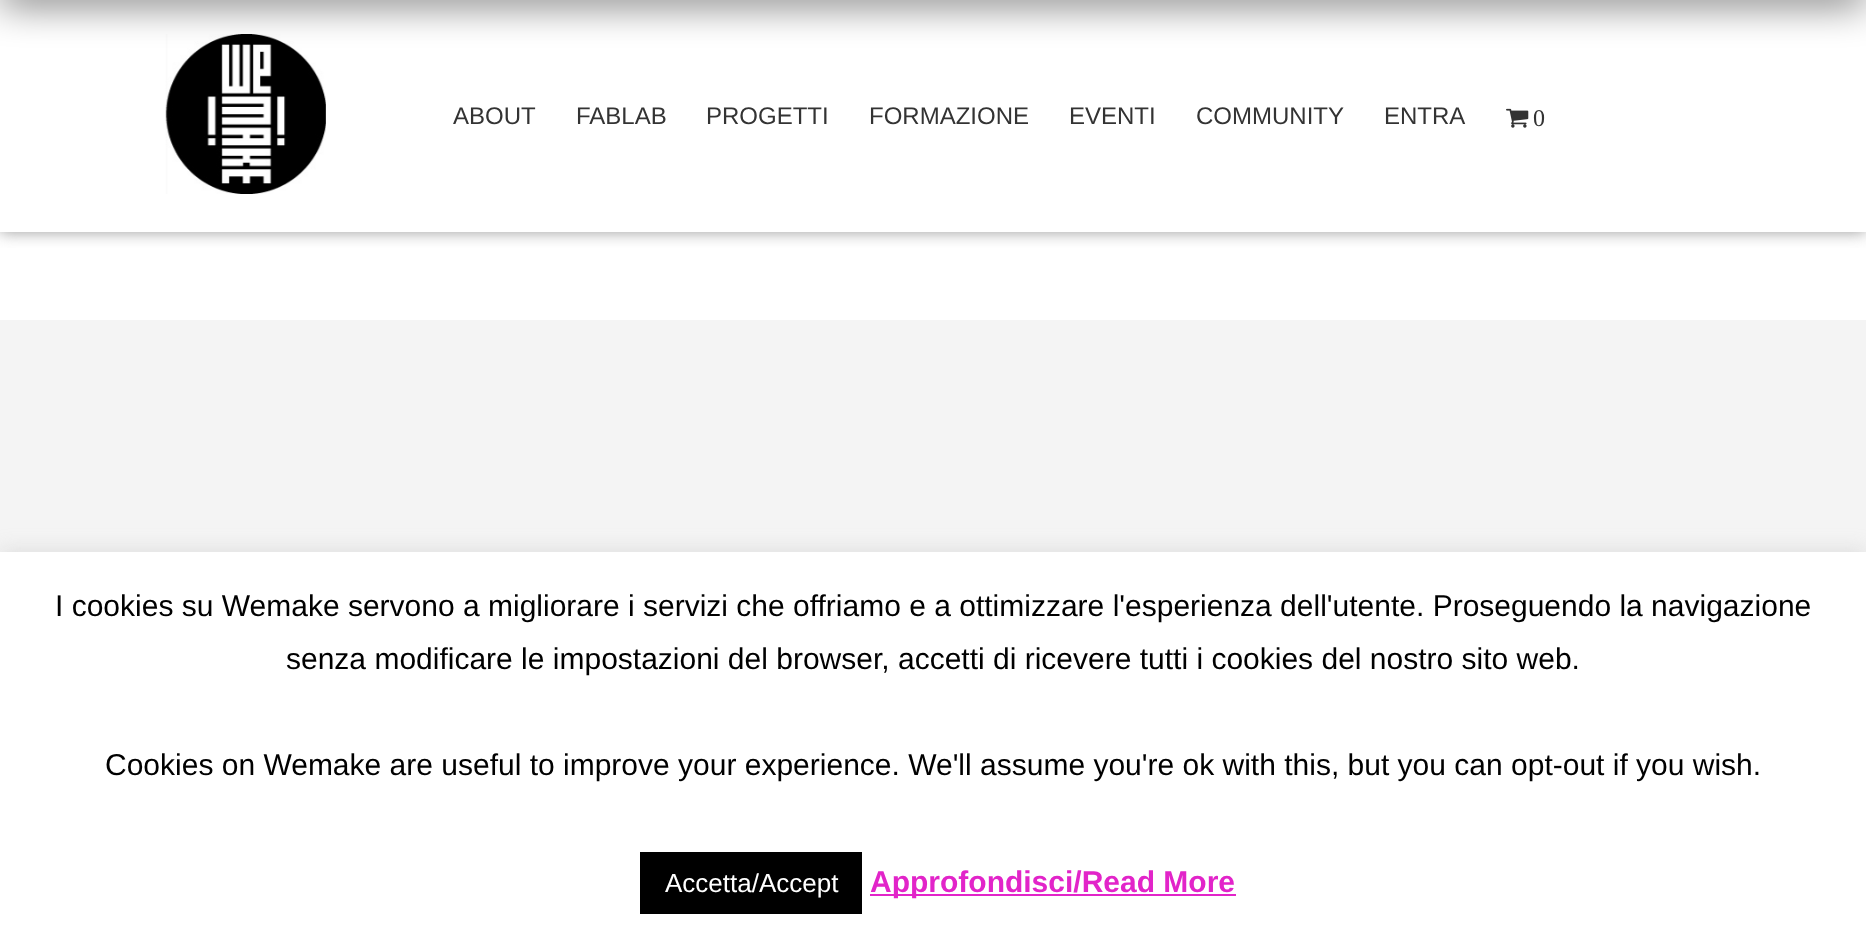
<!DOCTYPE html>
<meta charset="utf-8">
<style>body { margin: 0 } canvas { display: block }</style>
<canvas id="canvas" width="1866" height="938"></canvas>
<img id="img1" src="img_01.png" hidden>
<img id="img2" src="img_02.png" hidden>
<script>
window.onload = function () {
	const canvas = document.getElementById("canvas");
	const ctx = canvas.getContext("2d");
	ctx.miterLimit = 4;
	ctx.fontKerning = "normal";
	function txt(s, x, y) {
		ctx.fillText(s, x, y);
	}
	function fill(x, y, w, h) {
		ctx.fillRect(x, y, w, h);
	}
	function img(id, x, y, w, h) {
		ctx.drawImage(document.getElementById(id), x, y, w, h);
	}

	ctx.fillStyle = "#FFFFFF";
	fill(0, 0, 1866, 938);
	ctx.save();
	ctx.beginPath();
	ctx.rect(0, 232, 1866, 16);
	ctx.clip();
	ctx.fillStyle = "#999999";
	ctx.filter = "blur(8px)";
	ctx.beginPath();
	ctx.rect(0, 0, 1866, 232);
	ctx.fill();
	ctx.filter = "none";
	ctx.restore();
	img("img1", 165, 34, 161, 160);
	ctx.fillStyle = "rgba(0, 0, 0, 0.8)";
	ctx.filter = "blur(20px)";
	ctx.beginPath();
	ctx.rect(0, -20, 1866, 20);
	ctx.fill();
	ctx.filter = "none";
	img("img2", 1506, 108, 23, 20);
	ctx.fillStyle = "#F4F4F4";
	fill(0, 320, 1866, 232);
	ctx.fillStyle = "rgba(172, 171, 171, 0.3)";
	ctx.filter = "blur(10px)";
	ctx.beginPath();
	ctx.rect(0, 550, 1866, 386);
	ctx.fill();
	ctx.filter = "none";
	ctx.fillStyle = "#FFFFFF";
	fill(0, 552, 1866, 386);
	ctx.fillStyle = "#000000";
	fill(640, 852, 222, 62);
	ctx.fillStyle = "#E224C9";
	fill(870, 894, 366, 2);
	ctx.font = "24px Liberation Sans";
	ctx.fillStyle = "#333333";
	txt("ABOUT", 453, 124);
	txt("FABLAB", 576, 124);
	txt("PROGETTI", 706, 124);
	txt("FORMAZIONE", 869, 124);
	txt("EVENTI", 1069, 124);
	txt("COMMUNITY", 1196, 124);
	txt("ENTRA", 1384, 124);
	ctx.font = "24px Liberation Serif";
	txt("0", 1533, 126);
	ctx.font = "30px Liberation Sans";
	ctx.fillStyle = "#000000";
	txt("I cookies su Wemake servono a migliorare i servizi che offriamo e a ottimizzare l'esperienza dell'utente. Proseguendo la navigazione", 55, 616);
	txt("senza modificare le impostazioni del browser, accetti di ricevere tutti i cookies del nostro sito web.", 286, 669);
	txt("Cookies on Wemake are useful to improve your experience. We'll assume you're ok with this, but you can opt-out if you wish.", 105, 775);
	ctx.font = "26px Liberation Sans";
	ctx.fillStyle = "#FFFFFF";
	txt("Accetta/Accept", 665, 892);
	ctx.font = "bold 30px Liberation Sans";
	ctx.fillStyle = "#E224C9";
	txt("Approfondisci/Read More", 870, 892);
};
</script>
